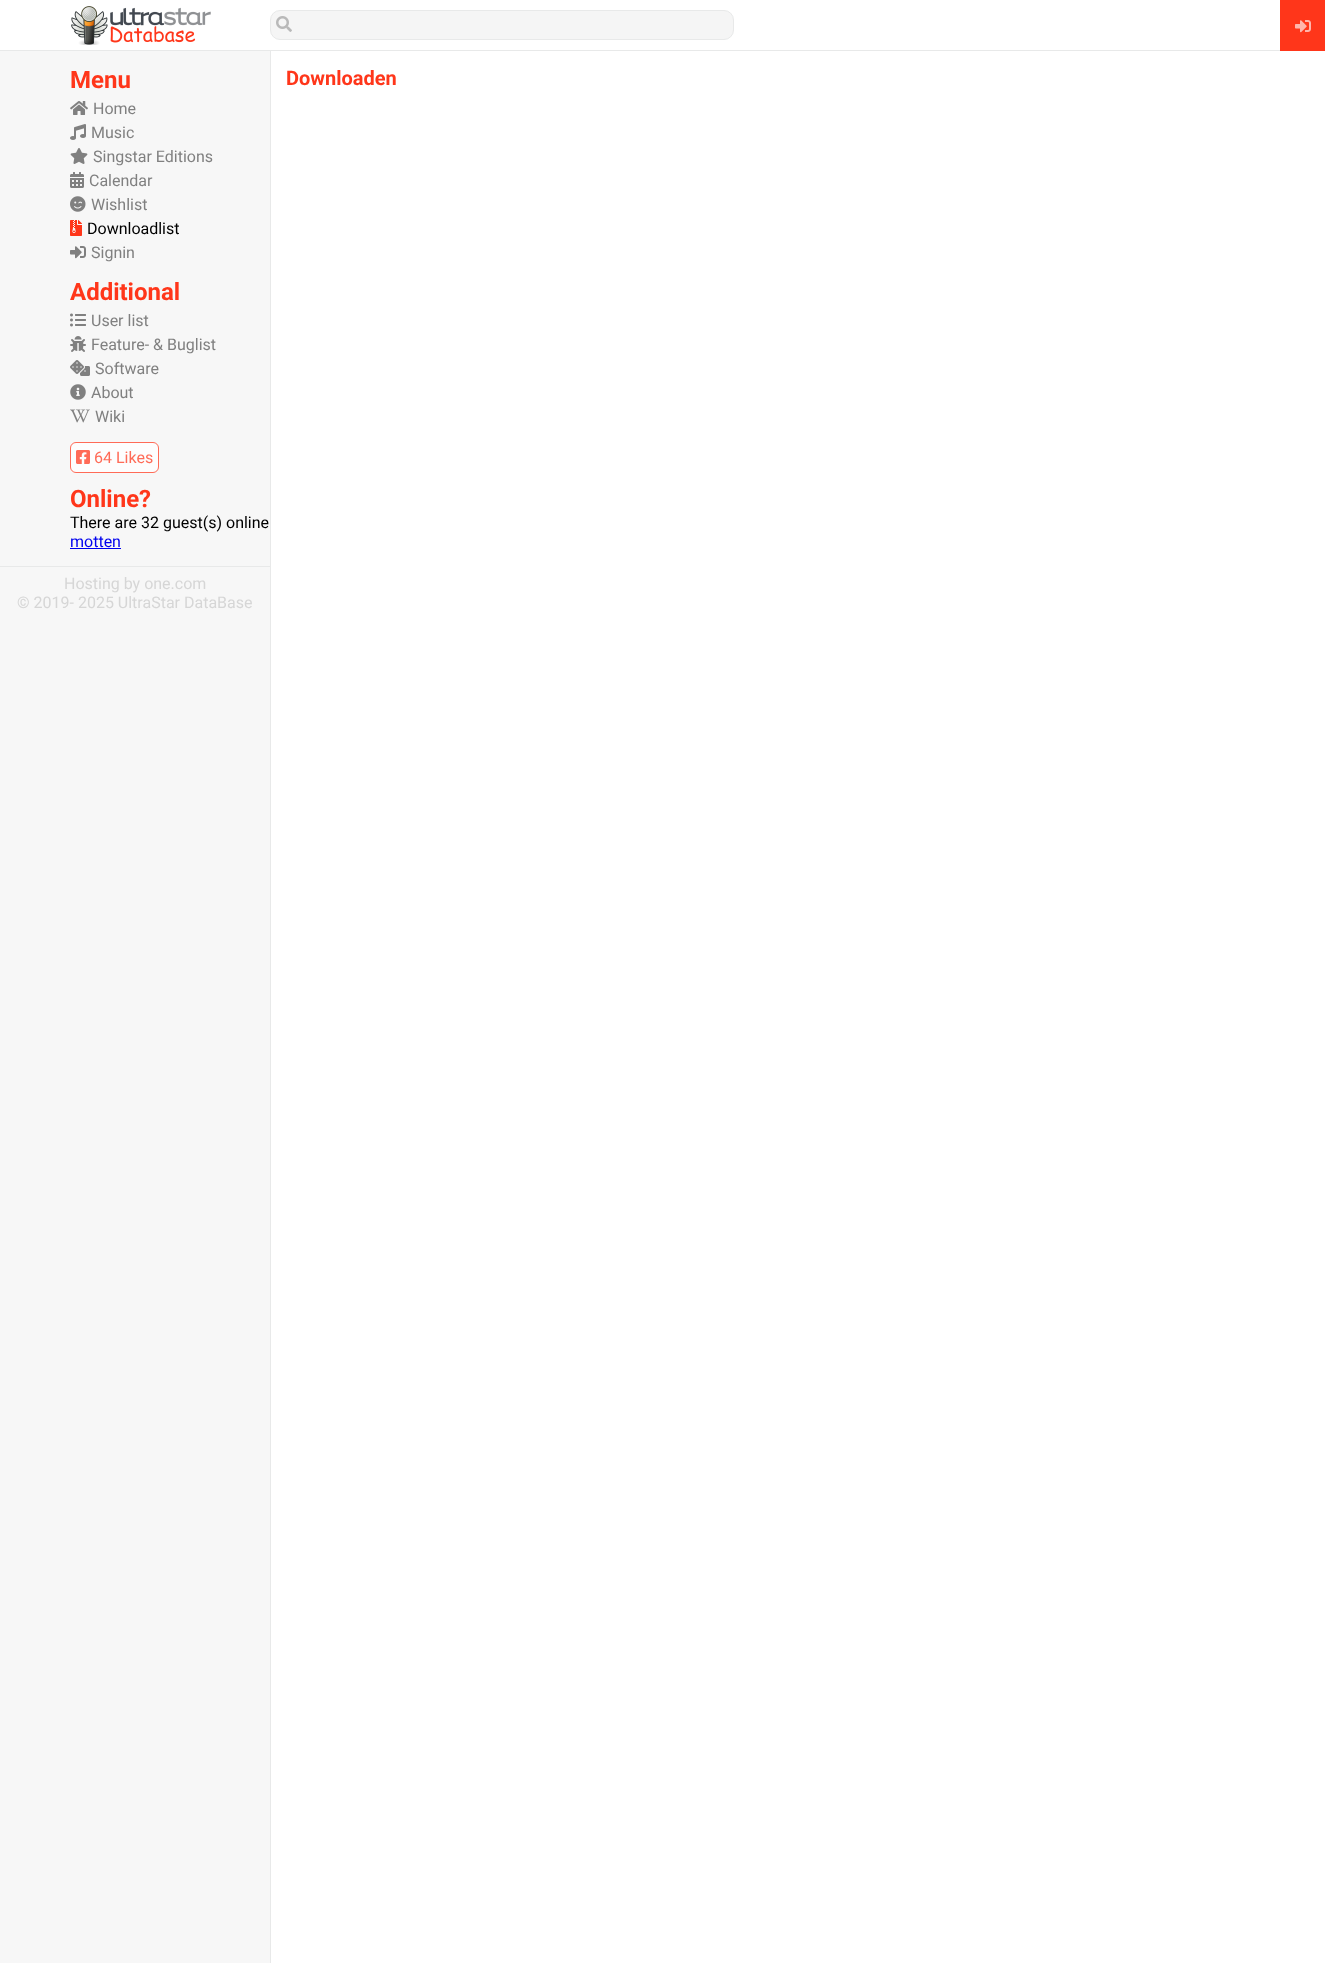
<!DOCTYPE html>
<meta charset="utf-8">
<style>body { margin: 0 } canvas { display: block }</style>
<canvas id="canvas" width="1325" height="1963"></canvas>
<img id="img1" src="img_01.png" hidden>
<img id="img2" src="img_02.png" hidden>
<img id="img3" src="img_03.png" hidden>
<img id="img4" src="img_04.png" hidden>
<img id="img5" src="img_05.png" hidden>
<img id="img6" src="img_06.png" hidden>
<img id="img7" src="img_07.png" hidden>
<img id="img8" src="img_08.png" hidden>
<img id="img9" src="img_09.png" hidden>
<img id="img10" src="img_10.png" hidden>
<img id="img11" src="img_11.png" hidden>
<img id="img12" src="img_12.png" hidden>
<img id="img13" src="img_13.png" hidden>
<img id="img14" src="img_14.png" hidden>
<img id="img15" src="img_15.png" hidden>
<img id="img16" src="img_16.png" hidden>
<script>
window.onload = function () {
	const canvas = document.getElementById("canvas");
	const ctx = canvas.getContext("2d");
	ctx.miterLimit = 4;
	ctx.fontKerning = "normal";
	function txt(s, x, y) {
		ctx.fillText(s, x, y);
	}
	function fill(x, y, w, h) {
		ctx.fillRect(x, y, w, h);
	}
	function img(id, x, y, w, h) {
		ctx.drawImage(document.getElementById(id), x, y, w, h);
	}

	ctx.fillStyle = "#FFFFFF";
	fill(0, 0, 1325, 1963);
	ctx.fillStyle = "#E8E9E9";
	fill(0, 50, 1280, 1);
	img("img1", 71, 6, 140, 39);
	ctx.fillStyle = "#F5F5F5";
	ctx.beginPath();
	ctx.roundRect(270.5, 10.5, 463, 29, 9.5);
	ctx.fill();
	ctx.strokeStyle = "#E8E9E9";
	ctx.stroke();
	img("img2", 276, 16, 16, 16);
	ctx.fillStyle = "#FF361A";
	fill(1280, 0, 45, 51);
	img("img3", 1295, 20, 16, 13);
	ctx.fillStyle = "#F7F7F7";
	fill(0, 51, 270, 1912);
	ctx.fillStyle = "#E8E9E9";
	fill(270, 51, 1, 1912);
	img("img4", 70, 101, 18, 14);
	img("img5", 70, 124, 16, 16);
	img("img6", 70, 148, 18, 16);
	img("img7", 70, 172, 14, 16);
	img("img8", 70, 196, 16, 16);
	img("img9", 70, 220, 12, 16);
	img("img10", 70, 246, 16, 13);
	img("img11", 70, 313, 16, 14);
	img("img12", 70, 336, 16, 16);
	img("img13", 70, 360, 20, 16);
	img("img14", 70, 384, 16, 16);
	img("img15", 70, 409, 20, 14);
	ctx.fillStyle = "#FDFDFD";
	ctx.beginPath();
	ctx.roundRect(70.5, 442.5, 88, 30, 5.5);
	ctx.fill();
	ctx.strokeStyle = "#FF6B57";
	ctx.stroke();
	img("img16", 76, 450, 14, 14);
	ctx.fillStyle = "#0000EE";
	fill(70, 548, 51, 1);
	ctx.fillStyle = "#E8E9E9";
	fill(0, 566, 270, 1);
	ctx.font = "bold 24px Roboto";
	ctx.fillStyle = "#FF361A";
	txt("Menu", 70, 88);
	ctx.font = "16px Roboto";
	ctx.fillStyle = "#808080";
	txt("Home", 93, 114);
	txt("Music", 91, 138);
	txt("Singstar Editions", 93, 162);
	txt("Calendar", 89, 186);
	txt("Wishlist", 91, 210);
	ctx.fillStyle = "#000000";
	txt("Downloadlist", 87, 234);
	ctx.fillStyle = "#808080";
	txt("Signin", 91, 258);
	ctx.font = "bold 24px Roboto";
	ctx.fillStyle = "#FF361A";
	txt("Additional", 70, 300);
	ctx.font = "16px Roboto";
	ctx.fillStyle = "#808080";
	txt("User list", 91, 326);
	txt("Feature- & Buglist", 91, 350);
	txt("Software", 95, 374);
	txt("About", 91, 398);
	txt("Wiki", 95, 422);
	ctx.fillStyle = "#FF6B57";
	txt("64 Likes", 94, 463);
	ctx.font = "bold 24px Roboto";
	ctx.fillStyle = "#FF361A";
	txt("Online?", 70, 507);
	ctx.font = "16px Roboto";
	ctx.fillStyle = "#000000";
	txt("There are 32 guest(s) online", 70, 528);
	ctx.fillStyle = "#0000EE";
	txt("motten", 70, 547);
	ctx.fillStyle = "#D6D6D6";
	txt("Hosting by one.com", 64, 589);
	txt("© 2019- 2025 UltraStar DataBase", 17, 608);
	ctx.font = "bold 20px Roboto";
	ctx.fillStyle = "#FF361A";
	txt("Downloaden", 286, 85);
};
</script>
